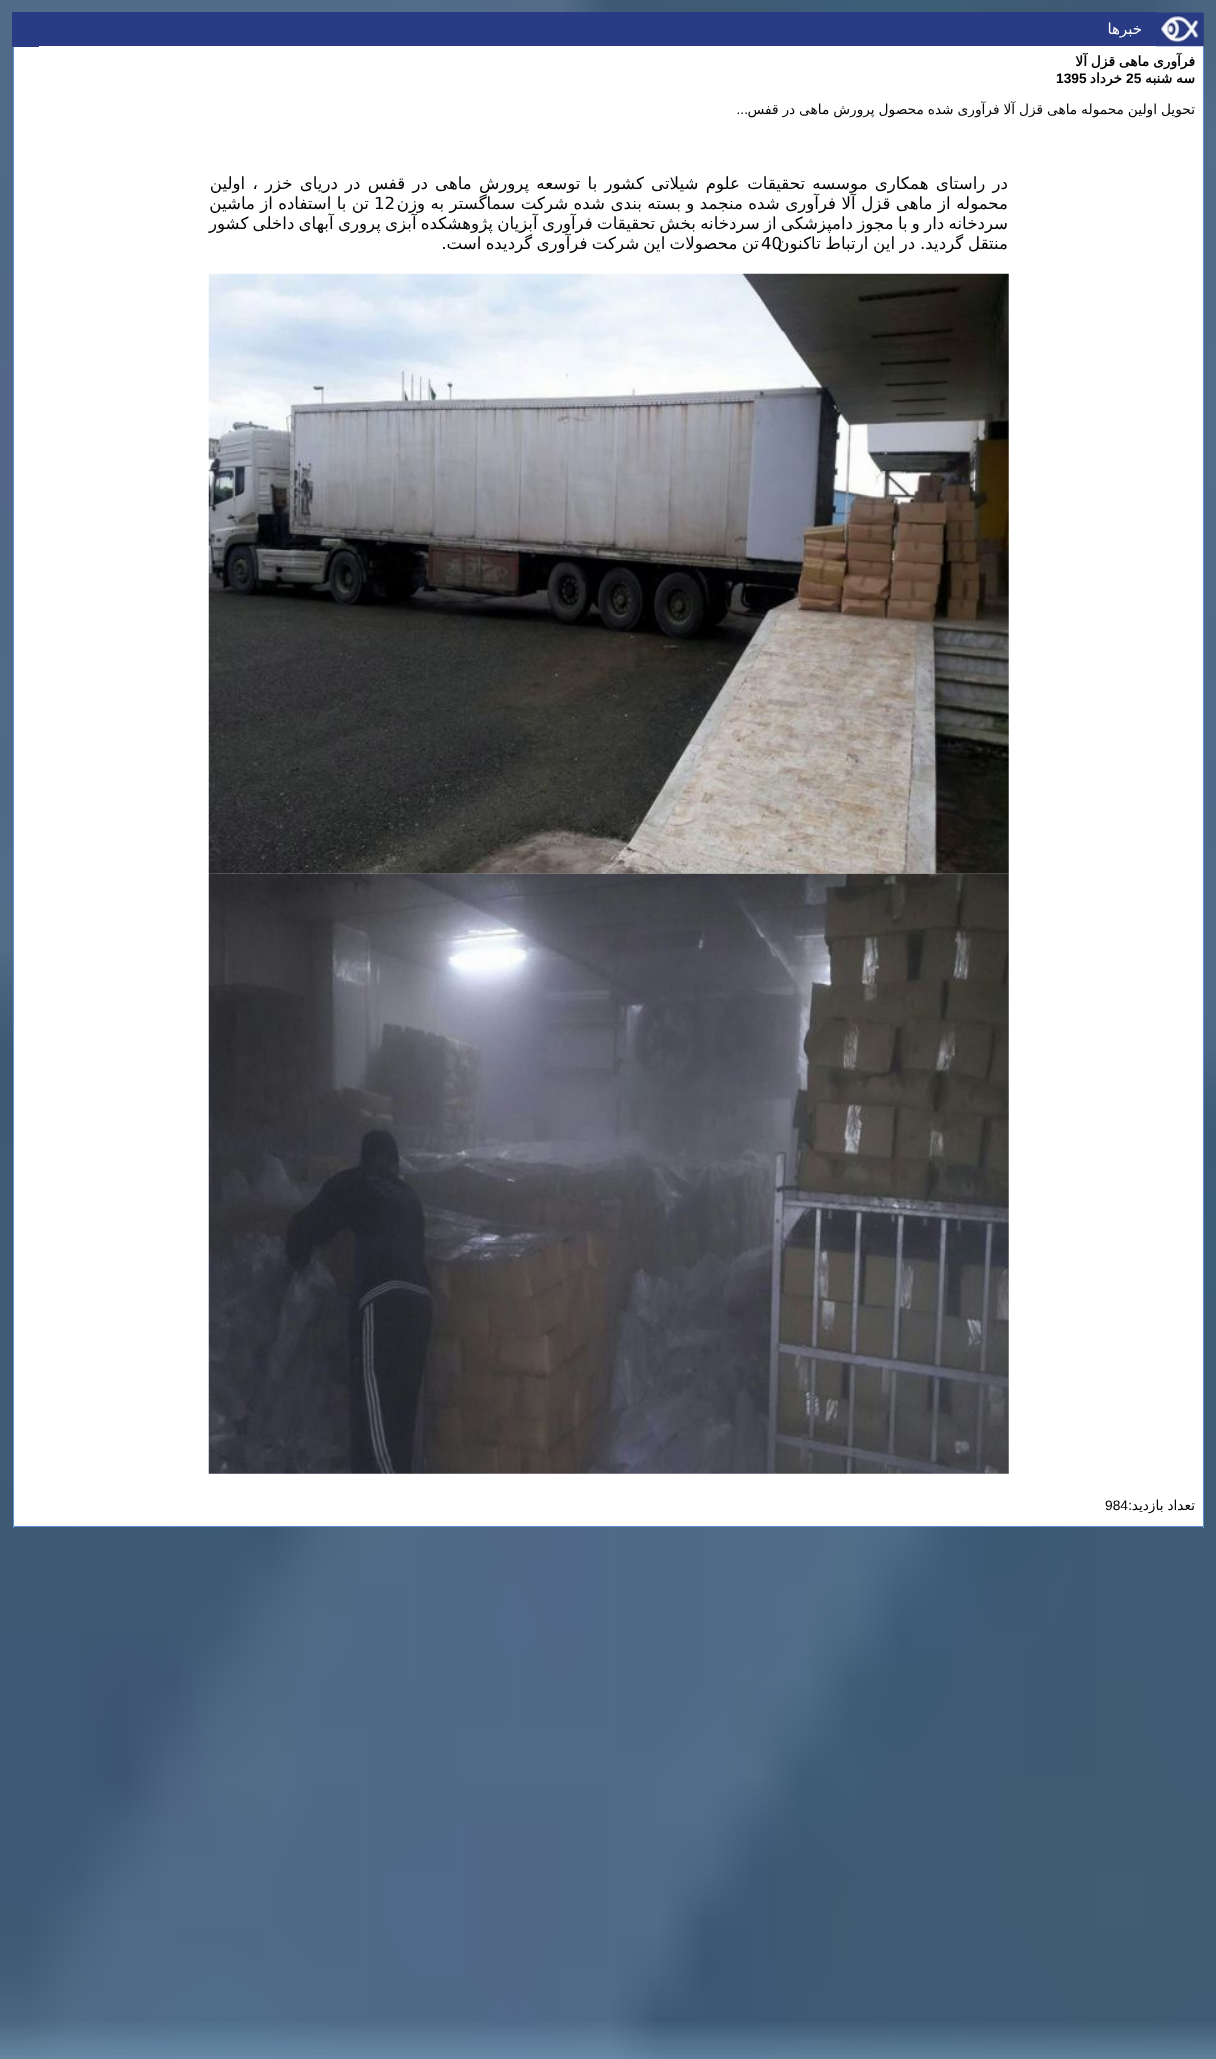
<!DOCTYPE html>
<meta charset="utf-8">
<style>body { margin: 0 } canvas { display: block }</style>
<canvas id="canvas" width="1216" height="2059"></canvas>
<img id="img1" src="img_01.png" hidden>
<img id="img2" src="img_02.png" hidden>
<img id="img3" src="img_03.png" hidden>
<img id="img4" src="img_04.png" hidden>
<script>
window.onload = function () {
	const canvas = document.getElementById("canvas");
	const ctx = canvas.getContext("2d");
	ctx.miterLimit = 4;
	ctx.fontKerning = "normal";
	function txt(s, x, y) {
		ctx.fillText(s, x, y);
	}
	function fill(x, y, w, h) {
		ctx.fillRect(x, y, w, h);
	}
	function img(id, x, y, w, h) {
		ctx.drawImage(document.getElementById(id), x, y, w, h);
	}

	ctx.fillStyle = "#7BA5BE";
	fill(0, 0, 1216, 2059);
	img("img1", 0, 0, 1216, 2059);
	ctx.fillStyle = "#293B85";
	fill(39, 12, 1118, 34);
	ctx.fillStyle = "#FFFFFF";
	fill(14, 46, 1189, 1480);
	ctx.fillStyle = "#5F92D3";
	fill(1203, 46, 1, 1482);
	img("img2", 1156, 12, 48, 35);
	fill(13, 1526, 1191, 1);
	fill(13, 46, 1, 1482);
	ctx.fillStyle = "#293B85";
	fill(12, 12, 27, 35);
	img("img3", 208, 273, 801, 601);
	img("img4", 208, 873, 801, 601);
	ctx.direction = "rtl";
	ctx.font = "15px DejaVu Sans";
	ctx.fillStyle = "#FFFFFF";
	txt("خبرها", 1142, 34);
	ctx.wordSpacing = "-0.5px";
	ctx.font = "bold 13.75px DejaVu Sans";
	ctx.fillStyle = "#000000";
	txt("فرآوری ماهی قزل آلا", 1195, 66);
	txt("سه شنبه", 1195, 83);
	ctx.wordSpacing = "0px";
	ctx.direction = "ltr";
	ctx.font = "bold 13.75px Liberation Sans";
	txt("25", 1126, 83);
	ctx.direction = "rtl";
	ctx.font = "bold 13.75px DejaVu Sans";
	txt("خرداد", 1122, 83);
	ctx.direction = "ltr";
	ctx.font = "bold 13.75px Liberation Sans";
	txt("1395", 1056, 83);
	ctx.wordSpacing = "-0.5px";
	ctx.direction = "rtl";
	ctx.font = "13.75px DejaVu Sans";
	txt("تحویل اولین محموله ماهی قزل آلا فرآوری شده محصول پرورش ماهی در قفس", 1195, 114);
	ctx.wordSpacing = "0px";
	ctx.font = "13.75px Liberation Sans";
	txt("...", 748, 114);
	ctx.wordSpacing = "1.9px";
	ctx.font = "16.65px DejaVu Sans";
	txt("در راستای همکاری موسسه تحقیقات علوم شیلاتی کشور با توسعه پرورش ماهی در قفس در دریای خزر ، اولین", 1008, 189);
	ctx.wordSpacing = "0.2px";
	txt("محموله از ماهی قزل آلا فرآوری شده منجمد و بسته بندی شده شرکت سماگستر به وزن", 1008, 209);
	ctx.wordSpacing = "0px";
	ctx.direction = "ltr";
	txt("12", 374, 209);
	ctx.direction = "rtl";
	txt("تن با استفاده از ماشین", 369, 209);
	ctx.wordSpacing = "-1px";
	txt("سردخانه دار و با مجوز دامپزشکی از سردخانه بخش تحقیقات فرآوری آبزیان پژوهشکده آبزی پروری آبهای داخلی کشور", 1008, 229);
	txt("تن محصولات این شرکت فرآوری گردیده است.", 759, 249);
	ctx.wordSpacing = "0px";
	ctx.direction = "ltr";
	txt("40", 761, 249);
	ctx.wordSpacing = "-0.5px";
	ctx.direction = "rtl";
	txt("منتقل گردید. در این ارتباط تاکنون", 1008, 249);
	ctx.font = "13.75px DejaVu Sans";
	txt("تعداد بازديد", 1195, 1510);
	ctx.wordSpacing = "0px";
	ctx.font = "13.75px Liberation Sans";
	txt(":", 1132, 1510);
	ctx.direction = "ltr";
	txt("984", 1105, 1510);
};
</script>
